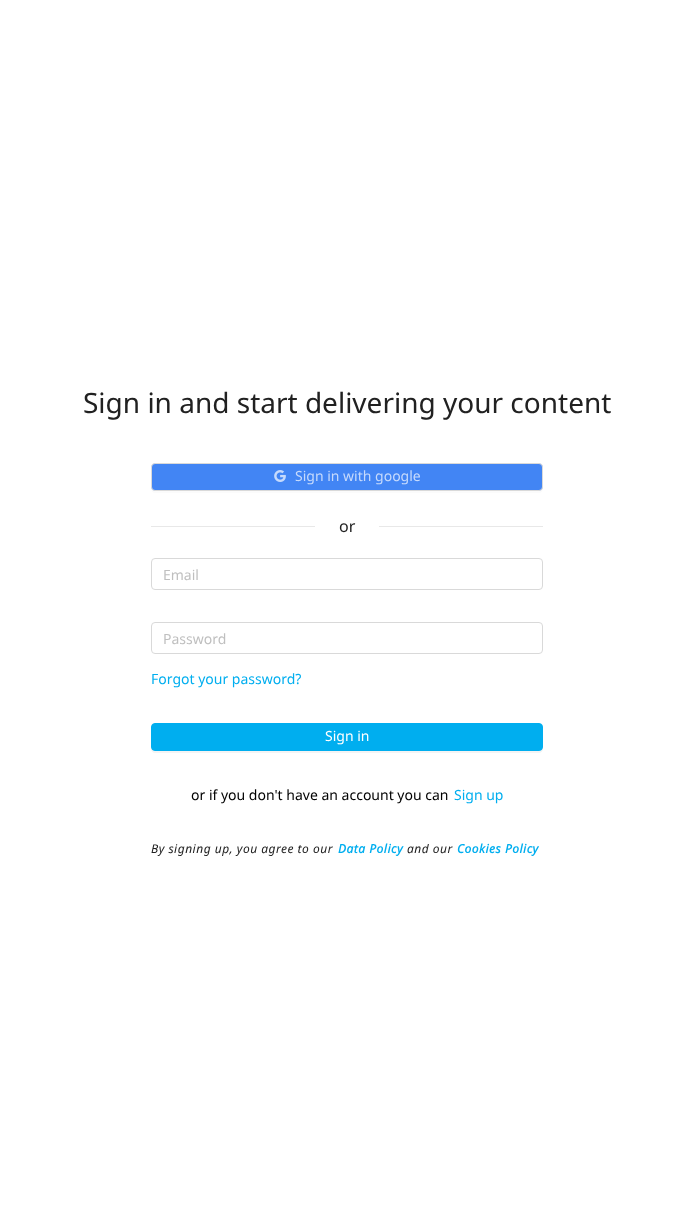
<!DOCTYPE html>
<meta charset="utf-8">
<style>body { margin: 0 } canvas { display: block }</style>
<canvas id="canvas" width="694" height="1224"></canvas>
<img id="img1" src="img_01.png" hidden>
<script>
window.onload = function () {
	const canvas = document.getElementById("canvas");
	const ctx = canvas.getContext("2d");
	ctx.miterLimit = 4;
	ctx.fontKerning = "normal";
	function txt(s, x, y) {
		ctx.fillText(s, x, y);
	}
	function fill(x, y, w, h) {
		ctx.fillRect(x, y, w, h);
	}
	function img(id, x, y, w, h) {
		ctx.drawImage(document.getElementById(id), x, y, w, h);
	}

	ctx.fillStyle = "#FFFFFF";
	fill(0, 0, 694, 1224);
	ctx.fillStyle = "#FBFBFB";
	ctx.beginPath();
	ctx.moveTo(151, 487);
	ctx.lineTo(151, 489);
	ctx.bezierCurveTo(151, 491, 153, 493, 155, 493);
	ctx.lineTo(539, 493);
	ctx.bezierCurveTo(541, 493, 543, 491, 543, 489);
	ctx.lineTo(543, 487);
	ctx.bezierCurveTo(543, 489, 541, 491, 539, 491);
	ctx.lineTo(155, 491);
	ctx.bezierCurveTo(153, 491, 151, 489, 151, 487);
	ctx.closePath();
	ctx.fill();
	ctx.fillStyle = "#4285F4";
	ctx.beginPath();
	ctx.roundRect(151.5, 463.5, 391, 27, 3.5);
	ctx.fill();
	ctx.strokeStyle = "#D9D9D9";
	ctx.stroke();
	img("img1", 274, 470, 12, 12);
	ctx.fillStyle = "#E8E8E8";
	fill(151, 526, 164, 1);
	fill(379, 526, 164, 1);
	ctx.beginPath();
	ctx.roundRect(151.5, 558.5, 391, 31, 3.5);
	ctx.stroke();
	ctx.beginPath();
	ctx.roundRect(151.5, 622.5, 391, 31, 3.5);
	ctx.stroke();
	ctx.fillStyle = "#F4F4F4";
	ctx.beginPath();
	ctx.moveTo(151, 747);
	ctx.lineTo(151, 749);
	ctx.bezierCurveTo(151, 751, 153, 753, 155, 753);
	ctx.lineTo(539, 753);
	ctx.bezierCurveTo(541, 753, 543, 751, 543, 749);
	ctx.lineTo(543, 747);
	ctx.bezierCurveTo(543, 749, 541, 751, 539, 751);
	ctx.lineTo(155, 751);
	ctx.bezierCurveTo(153, 751, 151, 749, 151, 747);
	ctx.closePath();
	ctx.fill();
	ctx.fillStyle = "#00AEEF";
	ctx.beginPath();
	ctx.roundRect(151.5, 723.5, 391, 27, 3.5);
	ctx.fill();
	ctx.strokeStyle = "#00AEEF";
	ctx.stroke();
	ctx.font = "28px Noto Sans";
	ctx.fillStyle = "#212121";
	txt("Sign in and start delivering your content", 83, 413);
	ctx.font = "14px Noto Sans";
	ctx.fillStyle = "#C6DAFC";
	txt("Sign in with google", 295, 481);
	ctx.font = "16px Noto Sans";
	ctx.fillStyle = "#212121";
	txt("or", 339, 532);
	ctx.font = "14px Noto Sans";
	ctx.fillStyle = "#BFBFBF";
	txt("Email", 163, 580);
	txt("Password", 163, 644);
	ctx.fillStyle = "#00AEEF";
	txt("Forgot your password?", 151, 684);
	ctx.fillStyle = "#FFFFFF";
	txt("Sign in", 325, 741);
	ctx.fillStyle = "#000000";
	txt("or if you don't have an account you can", 191, 800);
	ctx.fillStyle = "#00AEEF";
	txt("Sign up", 454, 800);
	ctx.letterSpacing = "0.5px";
	ctx.font = "italic 12px Noto Sans";
	ctx.fillStyle = "#212121";
	txt("By signing up, you agree to our", 151, 853);
	ctx.font = "italic bold 12px Noto Sans";
	ctx.fillStyle = "#00AEEF";
	txt("Data Policy", 338, 853);
	ctx.font = "italic 12px Noto Sans";
	ctx.fillStyle = "#212121";
	txt("and our", 407, 853);
	ctx.font = "italic bold 12px Noto Sans";
	ctx.fillStyle = "#00AEEF";
	txt("Cookies Policy", 457, 853);
};
</script>
